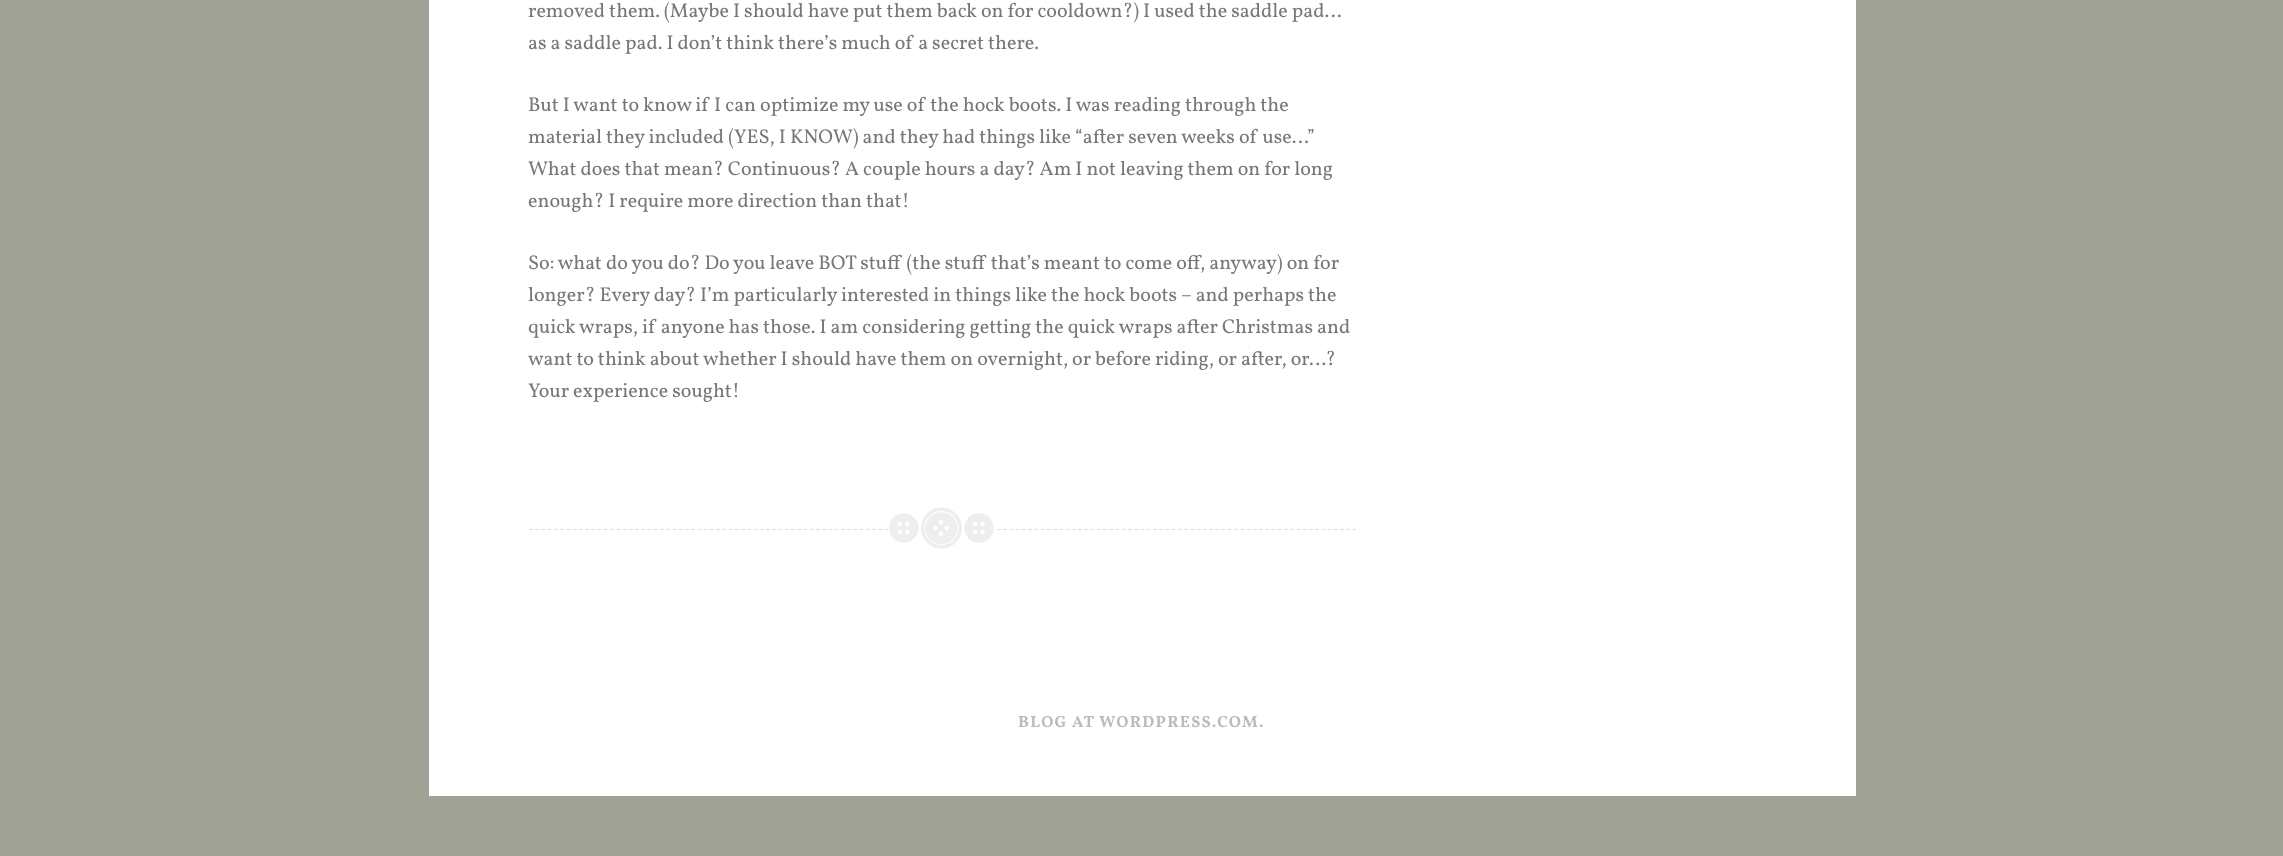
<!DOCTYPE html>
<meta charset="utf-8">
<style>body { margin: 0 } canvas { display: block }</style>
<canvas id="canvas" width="2283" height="856"></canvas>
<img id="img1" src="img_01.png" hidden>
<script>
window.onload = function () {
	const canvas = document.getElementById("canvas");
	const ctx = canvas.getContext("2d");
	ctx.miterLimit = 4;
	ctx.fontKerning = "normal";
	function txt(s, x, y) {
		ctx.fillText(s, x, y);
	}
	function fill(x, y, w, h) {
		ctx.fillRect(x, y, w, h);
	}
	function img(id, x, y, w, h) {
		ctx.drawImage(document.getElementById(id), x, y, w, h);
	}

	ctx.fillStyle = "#A0A295";
	fill(0, 0, 2283, 856);
	ctx.fillStyle = "#FFFFFF";
	fill(429, 0, 1427, 796);
	ctx.beginPath();
	ctx.moveTo(529, 529.5);
	ctx.lineTo(1356, 529.5);
	ctx.strokeStyle = "#DDDDDD";
	ctx.lineWidth = 1.2;
	ctx.setLineDash([3.75, 2.49]);
	ctx.stroke();
	fill(888, 528, 110, 3);
	img("img1", 889, 507, 105, 42);
	ctx.font = "20px Vollkorn";
	ctx.fillStyle = "#777777";
	txt("removed them. (Maybe I should have put them back on for cooldown?) I used the saddle pad…", 528, 17);
	txt("as a saddle pad. I don’t think there’s much of a secret there.", 528, 49);
	txt("But I want to know if I can optimize my use of the hock boots. I was reading through the", 528, 111);
	txt("material they included (YES, I KNOW) and they had things like “after seven weeks of use…”", 528, 143);
	txt("What does that mean? Continuous? A couple hours a day? Am I not leaving them on for long", 528, 175);
	txt("enough? I require more direction than that!", 528, 207);
	txt("So: what do you do? Do you leave BOT stuff (the stuff that’s meant to come off, anyway) on for", 528, 269);
	txt("longer? Every day? I’m particularly interested in things like the hock boots – and perhaps the", 528, 301);
	txt("quick wraps, if anyone has those. I am considering getting the quick wraps after Christmas and", 528, 333);
	txt("want to think about whether I should have them on overnight, or before riding, or after, or…?", 528, 365);
	txt("Your experience sought!", 528, 397);
	ctx.letterSpacing = "1.25px";
	ctx.font = "bold 16.25px Vollkorn";
	ctx.fillStyle = "#BBBBBB";
	txt("BLOG AT WORDPRESS.COM.", 1018, 727);
};
</script>
